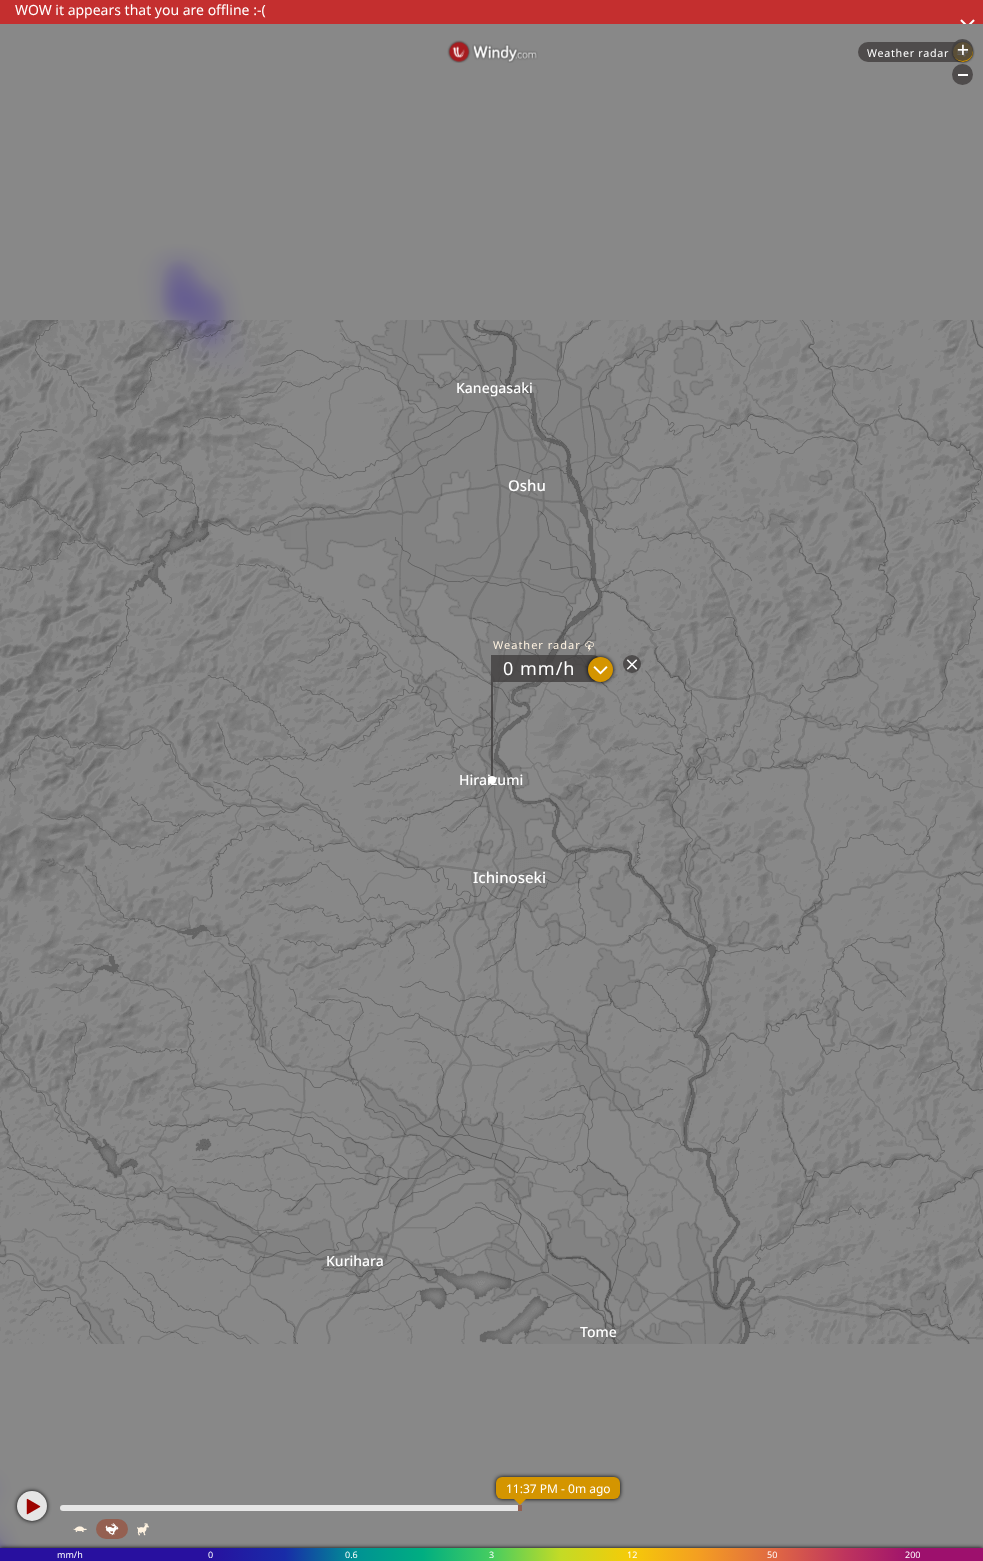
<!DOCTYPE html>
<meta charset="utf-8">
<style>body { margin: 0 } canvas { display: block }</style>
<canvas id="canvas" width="983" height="1561"></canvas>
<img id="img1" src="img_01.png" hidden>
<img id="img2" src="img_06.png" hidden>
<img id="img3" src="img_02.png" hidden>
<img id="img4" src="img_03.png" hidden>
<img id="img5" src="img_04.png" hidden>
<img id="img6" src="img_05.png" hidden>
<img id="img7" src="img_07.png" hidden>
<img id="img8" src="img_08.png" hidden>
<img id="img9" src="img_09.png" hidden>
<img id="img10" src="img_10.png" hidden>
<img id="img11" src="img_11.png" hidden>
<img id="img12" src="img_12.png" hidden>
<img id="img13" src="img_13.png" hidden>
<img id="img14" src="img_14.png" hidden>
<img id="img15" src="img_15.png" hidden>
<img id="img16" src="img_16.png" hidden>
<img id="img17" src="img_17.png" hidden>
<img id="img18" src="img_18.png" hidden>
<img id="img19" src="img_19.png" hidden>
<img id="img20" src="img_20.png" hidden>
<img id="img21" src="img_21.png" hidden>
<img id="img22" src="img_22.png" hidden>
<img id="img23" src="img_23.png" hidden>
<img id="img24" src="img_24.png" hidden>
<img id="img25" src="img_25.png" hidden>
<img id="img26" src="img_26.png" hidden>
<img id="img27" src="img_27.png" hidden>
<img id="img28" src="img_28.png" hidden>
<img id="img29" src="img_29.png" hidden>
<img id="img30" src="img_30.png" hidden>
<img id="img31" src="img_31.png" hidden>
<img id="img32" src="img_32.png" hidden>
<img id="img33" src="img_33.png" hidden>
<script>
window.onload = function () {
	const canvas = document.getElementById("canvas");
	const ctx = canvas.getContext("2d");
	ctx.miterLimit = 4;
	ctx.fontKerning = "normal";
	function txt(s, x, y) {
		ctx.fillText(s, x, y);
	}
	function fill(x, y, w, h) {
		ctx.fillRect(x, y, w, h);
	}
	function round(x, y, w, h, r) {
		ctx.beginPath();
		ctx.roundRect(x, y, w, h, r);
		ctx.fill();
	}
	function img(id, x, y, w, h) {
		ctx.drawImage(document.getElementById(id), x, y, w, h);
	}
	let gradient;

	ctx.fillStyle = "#FFFFFF";
	fill(0, 0, 983, 1561);
	ctx.fillStyle = "#C42F2F";
	fill(0, 0, 983, 24);
	img("img1", 960, 19, 15, 5);
	img("img2", 0, 24, 983, 1524);
	img("img3", 447, 40, 24, 23);
	img("img4", 472, 44, 66, 19);
	ctx.fillStyle = "#4F4C4C";
	round(858, 42, 115, 20, 10);
	ctx.fillStyle = "#000000";
	ctx.filter = "blur(1px)";
	ctx.beginPath();
	ctx.roundRect(953, 42, 20, 20, 10);
	ctx.fill();
	ctx.filter = "none";
	ctx.fillStyle = "#D49500";
	ctx.beginPath();
	ctx.arc(963, 52, 10, 0, Math.PI * 2);
	ctx.fill();
	img("img5", 957, 50, 11, 7);
	ctx.fillStyle = "rgba(68, 65, 65, 0.84)";
	round(952, 39, 21, 22, 10.5);
	img("img6", 957, 44, 12, 11);
	ctx.fillStyle = "#4F4C4C";
	ctx.beginPath();
	ctx.arc(962.5, 74.5, 10.5, 0, Math.PI * 2);
	ctx.fill();
	ctx.fillStyle = "#FFFFFF";
	fill(958, 74, 10, 2);
	img("img7", 0, 320, 35, 256);
	img("img8", 35, 320, 256, 256);
	img("img9", 291, 320, 256, 256);
	img("img10", 547, 320, 256, 256);
	img("img11", 803, 320, 180, 256);
	img("img12", 0, 576, 35, 256);
	img("img13", 35, 576, 256, 256);
	img("img14", 291, 576, 256, 256);
	img("img15", 547, 576, 256, 256);
	img("img16", 803, 576, 180, 256);
	img("img17", 0, 832, 35, 256);
	img("img18", 35, 832, 256, 256);
	img("img19", 291, 832, 256, 256);
	img("img20", 547, 832, 256, 256);
	img("img21", 803, 832, 180, 256);
	img("img22", 0, 1088, 35, 256);
	img("img23", 35, 1088, 256, 256);
	img("img24", 291, 1088, 256, 256);
	img("img25", 547, 1088, 256, 256);
	img("img26", 803, 1088, 180, 256);
	ctx.fillStyle = "rgba(68, 65, 65, 0.84)";
	ctx.beginPath();
	ctx.roundRect(493, 655, 112, 27, [0, 13.5, 13.5, 0]);
	ctx.fill();
	img("img27", 585, 640, 9, 12);
	ctx.fillStyle = "#000000";
	ctx.filter = "blur(2px)";
	ctx.beginPath();
	ctx.roundRect(588, 657, 25, 25, 12.5);
	ctx.fill();
	ctx.filter = "none";
	ctx.fillStyle = "#D49500";
	ctx.beginPath();
	ctx.arc(600.5, 669.5, 12.5, 0, Math.PI * 2);
	ctx.fill();
	img("img28", 593, 666, 15, 9);
	ctx.fillStyle = "rgba(68, 65, 65, 0.84)";
	ctx.beginPath();
	ctx.arc(632, 664, 9, 0, Math.PI * 2);
	ctx.fill();
	img("img29", 626, 659, 12, 11);
	ctx.fillStyle = "#000000";
	ctx.filter = "blur(2px)";
	ctx.beginPath();
	ctx.roundRect(17, 1491, 30, 30, 15);
	ctx.fill();
	ctx.filter = "none";
	ctx.fillStyle = "#E5E5E5";
	ctx.beginPath();
	ctx.arc(32, 1506, 15, 0, Math.PI * 2);
	ctx.fill();
	img("img30", 26, 1498, 15, 17);
	round(60, 1505, 460, 6, 3);
	ctx.fillStyle = "#000000";
	ctx.filter = "blur(2px)";
	ctx.beginPath();
	ctx.roundRect(496, 1477, 124, 22, 6);
	ctx.fill();
	ctx.filter = "none";
	ctx.fillStyle = "#D49500";
	round(496, 1477, 124, 22, 6);
	ctx.beginPath();
	ctx.moveTo(514, 1499);
	ctx.lineTo(526, 1499);
	ctx.lineTo(520, 1505);
	ctx.closePath();
	ctx.fill();
	ctx.fillStyle = "#946051";
	fill(518, 1505, 4, 6);
	img("img31", 73, 1526, 14, 6);
	round(96, 1519, 32, 20, 10);
	img("img32", 105, 1523, 14, 13);
	img("img33", 137, 1523, 12, 13);
	ctx.fillStyle = "#000000";
	ctx.filter = "blur(2px)";
	ctx.beginPath();
	ctx.rect(0, 1548, 983, 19);
	ctx.fill();
	ctx.filter = "none";
	gradient = ctx.createLinearGradient(0, 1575, 983, 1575);
	gradient.addColorStop(0, "#28109F");
	gradient.addColorStop(0.21, "#28109F");
	gradient.addColorStop(0.29, "#182CA8");
	gradient.addColorStop(0.36, "#009194");
	gradient.addColorStop(0.43, "#00AE81");
	gradient.addColorStop(0.5, "#46CD60");
	gradient.addColorStop(0.57, "#C3DB26");
	gradient.addColorStop(0.64, "#F5CB08");
	gradient.addColorStop(0.71, "#F49F21");
	gradient.addColorStop(0.79, "#DF6644");
	gradient.addColorStop(0.86, "#BE345E");
	gradient.addColorStop(0.93, "#9D106D");
	gradient.addColorStop(1, "#9D106D");
	ctx.fillStyle = gradient;
	fill(0, 1548, 983, 13);
	ctx.font = "14px Noto Sans";
	ctx.fillStyle = "#FFFFFF";
	txt("WOW it appears that you are offline :-(", 15, 15);
	ctx.letterSpacing = "0.7px";
	ctx.font = "10.75px Noto Sans";
	txt("Weather radar", 867, 57);
	ctx.letterSpacing = "0px";
	ctx.font = "500 14px Noto Sans";
	txt("Kanegasaki", 456, 393);
	ctx.font = "500 15px Noto Sans";
	txt("Oshu", 508, 491);
	ctx.font = "500 14px Noto Sans";
	txt("Hiraizumi", 459, 785);
	ctx.font = "500 15px Noto Sans";
	txt("Ichinoseki", 473, 883);
	ctx.font = "500 14px Noto Sans";
	txt("Kurihara", 326, 1266);
	txt("Tome", 580, 1337);
	ctx.fillStyle = "rgba(68, 65, 65, 0.84)";
	fill(491, 655, 2, 125);
	ctx.fillStyle = "#FFFFFF";
	ctx.beginPath();
	ctx.arc(492, 780, 4, 0, Math.PI * 2);
	ctx.fill();
	ctx.letterSpacing = "1px";
	ctx.font = "11px Noto Sans";
	ctx.fillStyle = "#FFF3E1";
	txt("Weather radar", 493, 649);
	ctx.font = "18px Noto Sans";
	ctx.fillStyle = "#FFFFFF";
	txt("0 mm/h", 503, 675);
	ctx.letterSpacing = "0px";
	ctx.font = "12px Noto Sans";
	txt("11:37 PM - 0m ago", 506, 1493);
	ctx.font = "9px Noto Sans";
	txt("mm/h", 57, 1558);
	txt("0", 208, 1558);
	txt("0.6", 345, 1558);
	txt("3", 489, 1558);
	txt("12", 627, 1558);
	txt("50", 767, 1558);
	txt("200", 905, 1558);
};
</script>
